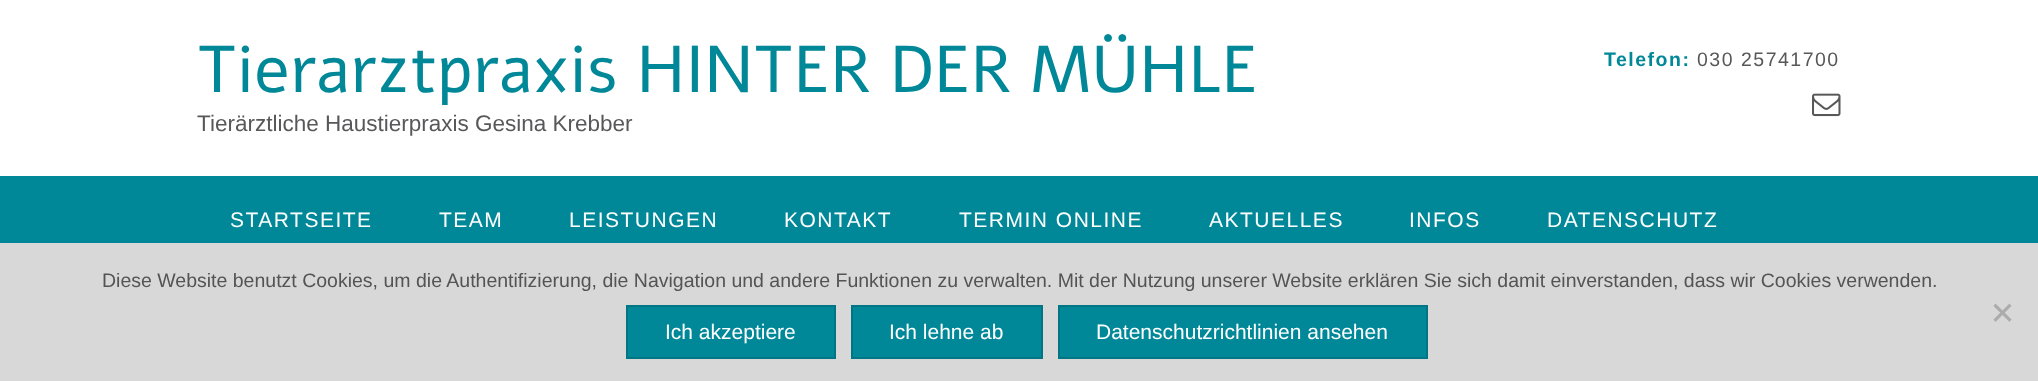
<!DOCTYPE html>
<meta charset="utf-8">
<style>body { margin: 0 } canvas { display: block }</style>
<canvas id="canvas" width="2038" height="381"></canvas>
<img id="img1" src="img_01.png" hidden>
<script>
window.onload = function () {
	const canvas = document.getElementById("canvas");
	const ctx = canvas.getContext("2d");
	ctx.miterLimit = 4;
	ctx.fontKerning = "normal";
	function txt(s, x, y) {
		ctx.fillText(s, x, y);
	}
	function fill(x, y, w, h) {
		ctx.fillRect(x, y, w, h);
	}
	function img(id, x, y, w, h) {
		ctx.drawImage(document.getElementById(id), x, y, w, h);
	}

	ctx.fillStyle = "#FFFFFF";
	fill(0, 0, 2038, 381);
	img("img1", 1812, 93, 29, 24);
	ctx.fillStyle = "#008899";
	fill(0, 176, 2038, 67);
	ctx.fillStyle = "#D8D8D8";
	fill(0, 243, 2038, 138);
	ctx.fillStyle = "#ACACAC";
	ctx.beginPath();
	ctx.moveTo(2009.5, 303.5);
	ctx.lineTo(2011.5, 306);
	ctx.lineTo(1995.5, 322);
	ctx.lineTo(1993.5, 319.5);
	ctx.closePath();
	ctx.fill();
	ctx.beginPath();
	ctx.moveTo(1993.5, 306);
	ctx.lineTo(1995.5, 303.5);
	ctx.lineTo(2011.5, 319.5);
	ctx.lineTo(2009.5, 322);
	ctx.closePath();
	ctx.fill();
	ctx.fillStyle = "#008899";
	ctx.beginPath();
	ctx.rect(627, 306, 208, 52);
	ctx.fill();
	ctx.strokeStyle = "#007584";
	ctx.lineWidth = 2;
	ctx.stroke();
	ctx.beginPath();
	ctx.rect(852, 306, 190, 52);
	ctx.fill();
	ctx.stroke();
	ctx.beginPath();
	ctx.rect(1059, 306, 368, 52);
	ctx.fill();
	ctx.stroke();
	ctx.font = "66px Alef";
	txt("Tierarztpraxis HINTER DER MÜHLE", 197, 92);
	ctx.font = "22.5px Liberation Sans";
	ctx.fillStyle = "#58585A";
	txt("Tierärztliche Haustierpraxis Gesina Krebber", 197, 131);
	ctx.letterSpacing = "1.5px";
	ctx.font = "bold 19.5px Liberation Sans";
	ctx.fillStyle = "#008899";
	txt("Telefon:", 1604, 66);
	ctx.font = "19.5px Liberation Sans";
	ctx.fillStyle = "#58585A";
	txt("030 25741700", 1697, 66);
	ctx.font = "21px Liberation Sans";
	ctx.fillStyle = "#FFFFFF";
	txt("STARTSEITE", 230, 227);
	txt("TEAM", 439, 227);
	txt("LEISTUNGEN", 569, 227);
	txt("KONTAKT", 784, 227);
	txt("TERMIN ONLINE", 959, 227);
	txt("AKTUELLES", 1209, 227);
	txt("INFOS", 1409, 227);
	txt("DATENSCHUTZ", 1547, 227);
	ctx.letterSpacing = "0px";
	ctx.font = "19.5px Liberation Sans";
	ctx.fillStyle = "#545454";
	txt("Diese Website benutzt Cookies, um die Authentifizierung, die Navigation und andere Funktionen zu verwalten. Mit der Nutzung unserer Website erklären Sie sich damit einverstanden, dass wir Cookies verwenden.", 102, 287);
	ctx.font = "21px Liberation Sans";
	ctx.fillStyle = "#FFFFFF";
	txt("Ich akzeptiere", 665, 339);
	txt("Ich lehne ab", 889, 339);
	txt("Datenschutzrichtlinien ansehen", 1096, 339);
};
</script>
